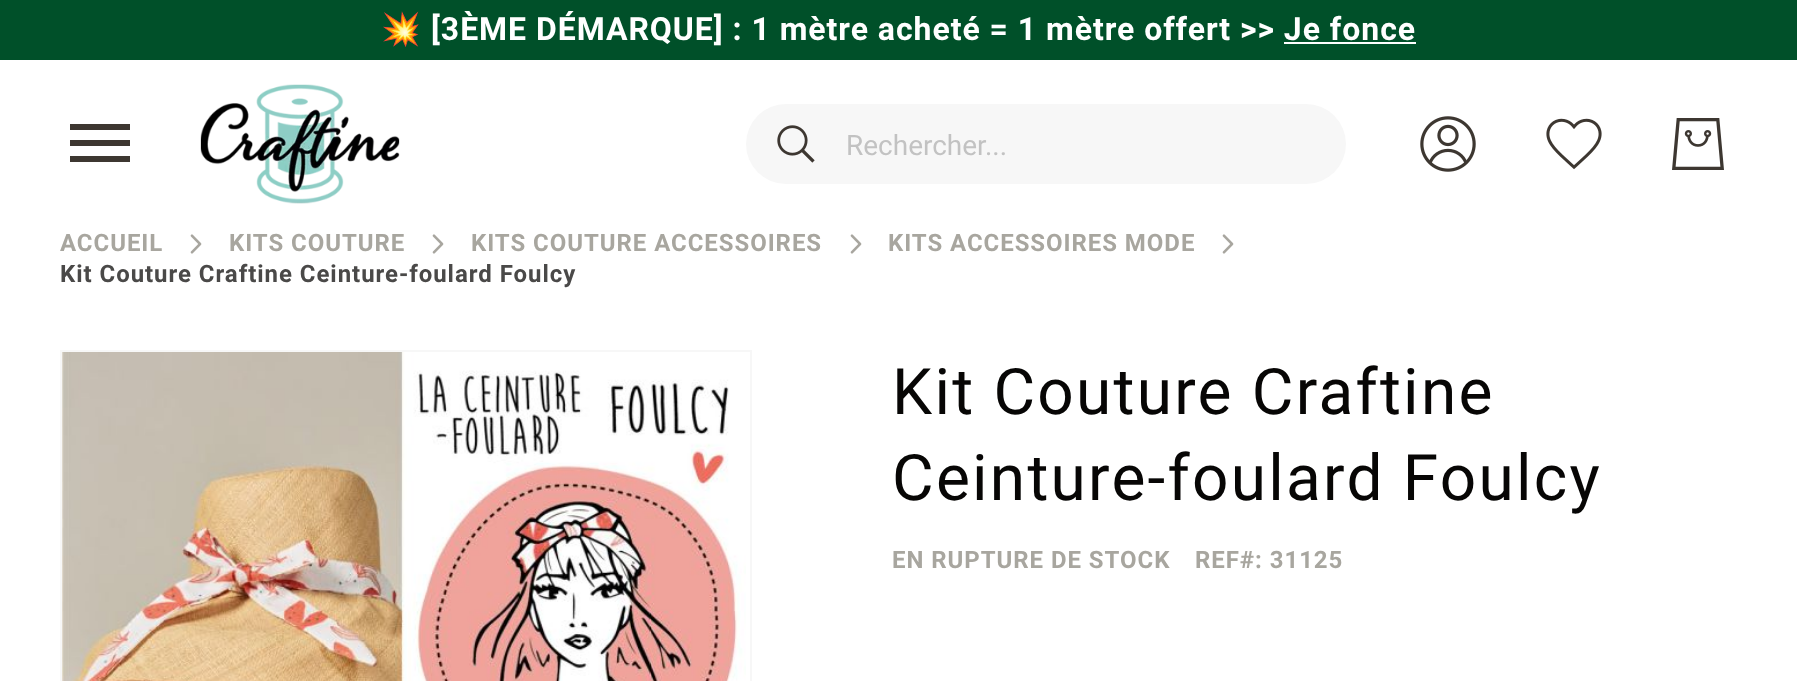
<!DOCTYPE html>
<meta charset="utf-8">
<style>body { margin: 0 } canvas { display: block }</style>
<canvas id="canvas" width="1797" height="681"></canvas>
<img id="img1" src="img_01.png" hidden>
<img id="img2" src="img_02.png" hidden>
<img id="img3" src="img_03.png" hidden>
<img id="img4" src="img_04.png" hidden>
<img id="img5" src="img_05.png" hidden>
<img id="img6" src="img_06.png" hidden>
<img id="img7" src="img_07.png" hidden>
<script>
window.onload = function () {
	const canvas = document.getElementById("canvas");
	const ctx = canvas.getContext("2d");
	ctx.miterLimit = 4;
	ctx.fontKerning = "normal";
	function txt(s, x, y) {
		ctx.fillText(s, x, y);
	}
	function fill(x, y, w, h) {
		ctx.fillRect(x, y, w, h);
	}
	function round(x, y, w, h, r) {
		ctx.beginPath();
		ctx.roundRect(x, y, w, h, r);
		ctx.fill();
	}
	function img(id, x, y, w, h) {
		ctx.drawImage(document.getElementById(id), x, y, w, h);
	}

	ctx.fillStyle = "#FFFFFF";
	fill(0, 0, 1797, 681);
	ctx.fillStyle = "#005029";
	fill(0, 0, 1797, 60);
	ctx.fillStyle = "#FFFFFF";
	fill(1284, 42, 132, 2);
	ctx.fillStyle = "#3D3731";
	fill(70, 124, 60, 6);
	fill(70, 140, 60, 6);
	fill(70, 156, 60, 6);
	img("img1", 200, 84, 200, 120);
	ctx.fillStyle = "#F7F7F7";
	round(746, 104, 600, 80, 40);
	img("img2", 777, 125, 38, 38);
	img("img3", 1420, 116, 56, 56);
	img("img4", 1546, 118, 56, 52);
	img("img5", 1672, 118, 52, 52);
	img("img6", 190, 234, 12, 20);
	img("img6", 432, 234, 12, 20);
	img("img6", 850, 234, 12, 20);
	img("img6", 1222, 234, 12, 20);
	ctx.strokeStyle = "#F7F7F7";
	ctx.lineWidth = 2;
	ctx.strokeRect(61, 351, 690, 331);
	img("img7", 62, 352, 684, 329);
	ctx.letterSpacing = "0.95px";
	ctx.font = "bold 32px Noto Color Emoji";
	ctx.fillStyle = "#FFFFFF";
	txt("💥", 381, 40);
	ctx.font = "bold 32px Roboto";
	txt("[3ÈME DÉMARQUE] : 1 mètre acheté = 1 mètre offert >> Je fonce", 431, 40);
	ctx.letterSpacing = "0px";
	ctx.font = "28px Roboto";
	ctx.fillStyle = "#C2C2C2";
	txt("Rechercher...", 846, 155);
	ctx.letterSpacing = "0.95px";
	ctx.font = "bold 24px Roboto";
	ctx.fillStyle = "#A8A69F";
	txt("ACCUEIL", 60, 251);
	txt("KITS COUTURE", 229, 251);
	txt("KITS COUTURE ACCESSOIRES", 471, 251);
	txt("KITS ACCESSOIRES MODE", 888, 251);
	ctx.fillStyle = "#4A4948";
	txt("Kit Couture Craftine Ceinture-foulard Foulcy", 60, 282);
	ctx.letterSpacing = "2.25px";
	ctx.font = "64px Roboto";
	ctx.fillStyle = "#070605";
	txt("Kit Couture Craftine", 892, 414);
	txt("Ceinture-foulard Foulcy", 892, 500);
	ctx.letterSpacing = "0.95px";
	ctx.font = "bold 24px Roboto";
	ctx.fillStyle = "#A8A69F";
	txt("EN RUPTURE DE STOCK", 892, 568);
	txt("REF#: 31125", 1195, 568);
};
</script>
